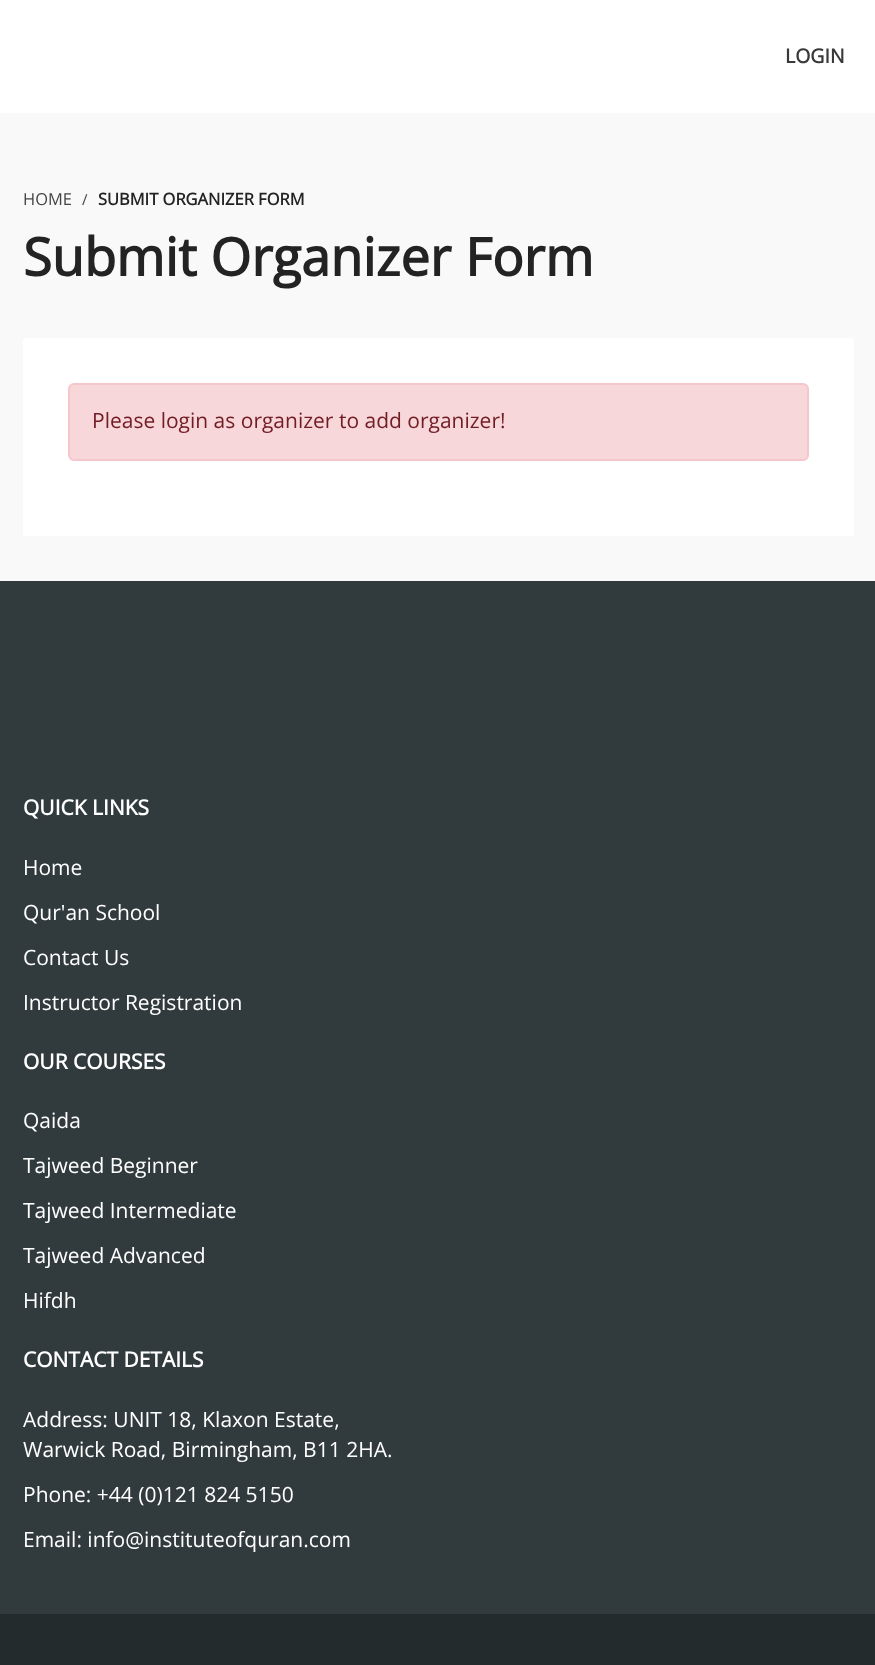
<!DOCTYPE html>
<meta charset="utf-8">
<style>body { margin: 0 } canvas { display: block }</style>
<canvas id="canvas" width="875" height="1665"></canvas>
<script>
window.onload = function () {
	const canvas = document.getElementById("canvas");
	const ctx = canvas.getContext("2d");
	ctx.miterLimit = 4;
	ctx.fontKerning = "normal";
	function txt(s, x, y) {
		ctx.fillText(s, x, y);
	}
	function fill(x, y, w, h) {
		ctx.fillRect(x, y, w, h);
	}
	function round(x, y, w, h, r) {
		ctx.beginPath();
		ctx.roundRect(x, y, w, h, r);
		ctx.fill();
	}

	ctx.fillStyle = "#F9F9F9";
	fill(0, 0, 875, 1665);
	ctx.fillStyle = "#FFFFFF";
	fill(0, 0, 875, 113);
	round(23, 338, 831, 198, 3);
	ctx.fillStyle = "#F8D7DA";
	ctx.beginPath();
	ctx.roundRect(69, 384, 739, 76, 5);
	ctx.fill();
	ctx.strokeStyle = "#F5C6CB";
	ctx.lineWidth = 2;
	ctx.stroke();
	ctx.fillStyle = "#313B3D";
	fill(0, 581, 875, 1033);
	ctx.fillStyle = "#232B2D";
	fill(0, 1614, 875, 51);
	ctx.font = "bold 19.5px Open Sans";
	ctx.fillStyle = "#393939";
	txt("LOGIN", 785, 63);
	ctx.font = "16.5px Open Sans";
	ctx.fillStyle = "#444444";
	txt("HOME", 23, 205);
	ctx.font = "15px Open Sans";
	txt("/", 82, 205);
	ctx.font = "bold 16.5px Open Sans";
	ctx.fillStyle = "#232323";
	txt("SUBMIT ORGANIZER FORM", 98, 205);
	ctx.font = "bold 52.5px Open Sans";
	txt("Submit Organizer Form", 23, 276);
	ctx.font = "21px Open Sans";
	ctx.fillStyle = "#721C24";
	txt("Please login as organizer to add organizer!", 92, 428);
	ctx.font = "bold 21px Open Sans";
	ctx.fillStyle = "#FFFFFF";
	txt("QUICK LINKS", 23, 815);
	ctx.font = "21px Open Sans";
	txt("Home", 23, 875);
	txt("Qur'an School", 23, 920);
	txt("Contact Us", 23, 965);
	txt("Instructor Registration", 23, 1010);
	ctx.font = "bold 21px Open Sans";
	txt("OUR COURSES", 23, 1069);
	ctx.font = "21px Open Sans";
	txt("Qaida", 23, 1128);
	txt("Tajweed Beginner", 23, 1173);
	txt("Tajweed Intermediate", 23, 1218);
	txt("Tajweed Advanced", 23, 1263);
	txt("Hifdh", 23, 1308);
	ctx.font = "bold 21px Open Sans";
	txt("CONTACT DETAILS", 23, 1367);
	ctx.font = "21px Open Sans";
	txt("Address: UNIT 18, Klaxon Estate,", 23, 1427);
	txt("Warwick Road, Birmingham, B11 2HA.", 23, 1457);
	txt("Phone: +44 (0)121 824 5150", 23, 1502);
	txt("Email: info@instituteofquran.com", 23, 1547);
};
</script>
